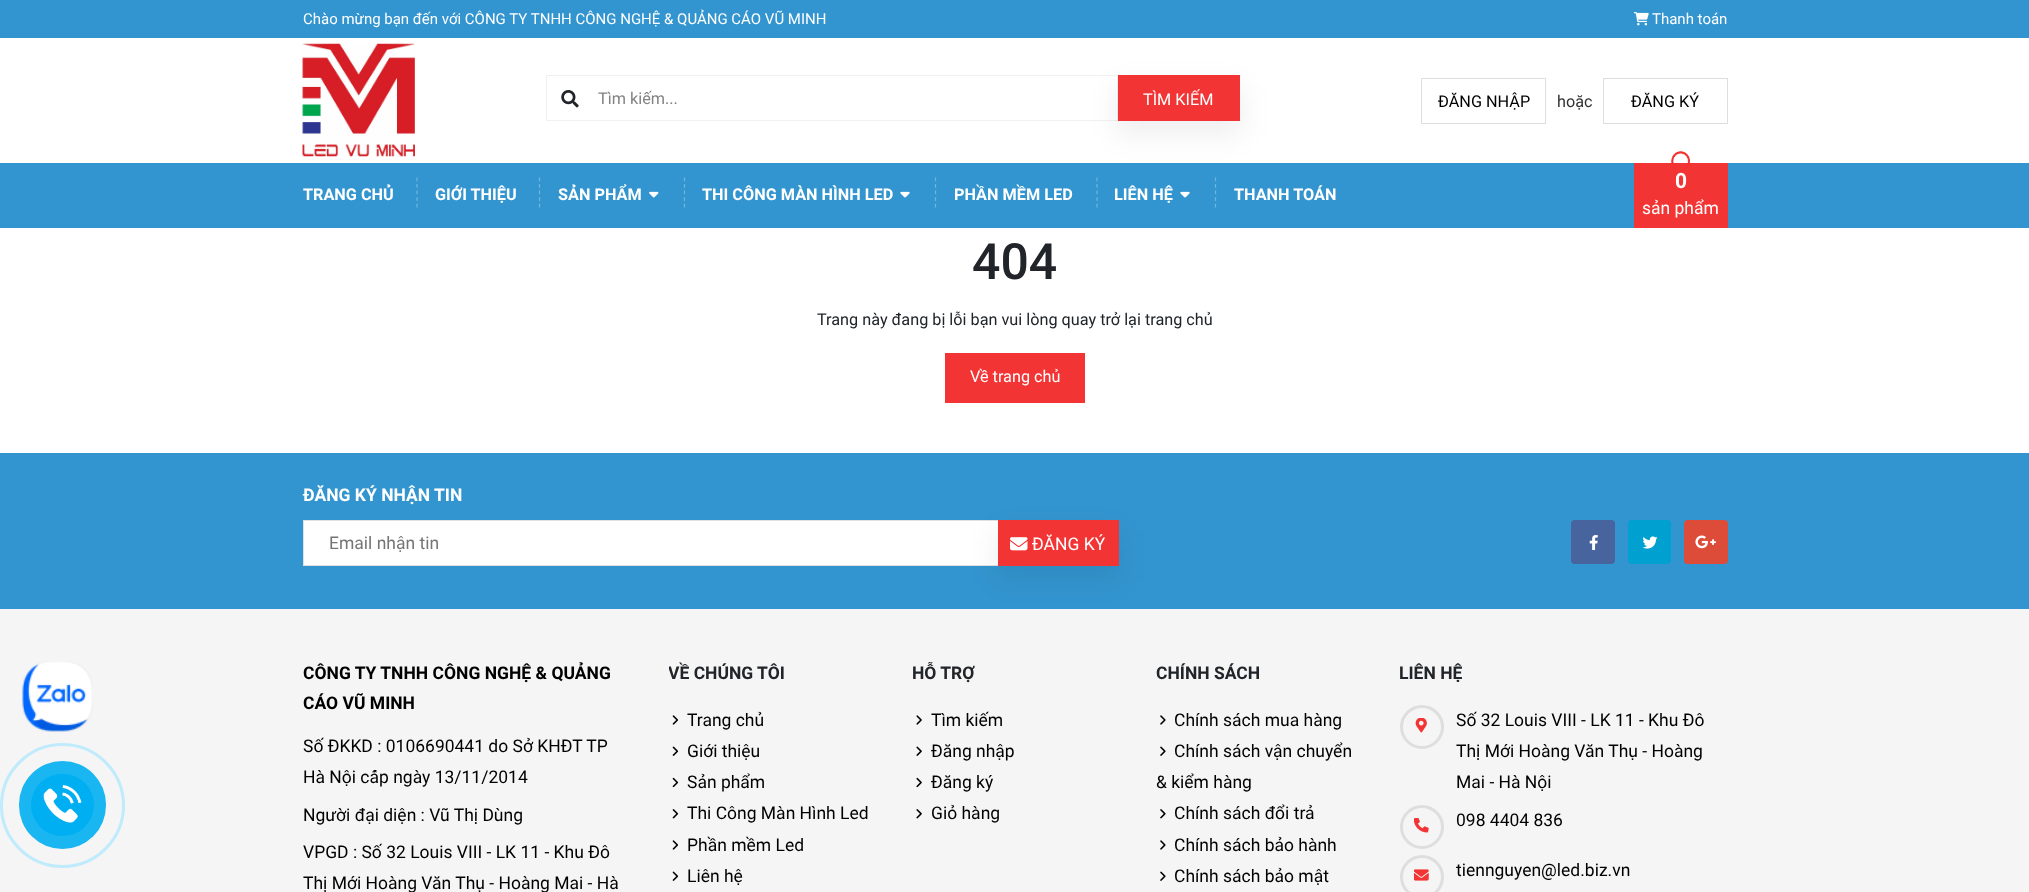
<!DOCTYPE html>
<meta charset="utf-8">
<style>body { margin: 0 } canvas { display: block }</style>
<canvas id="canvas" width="2029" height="892"></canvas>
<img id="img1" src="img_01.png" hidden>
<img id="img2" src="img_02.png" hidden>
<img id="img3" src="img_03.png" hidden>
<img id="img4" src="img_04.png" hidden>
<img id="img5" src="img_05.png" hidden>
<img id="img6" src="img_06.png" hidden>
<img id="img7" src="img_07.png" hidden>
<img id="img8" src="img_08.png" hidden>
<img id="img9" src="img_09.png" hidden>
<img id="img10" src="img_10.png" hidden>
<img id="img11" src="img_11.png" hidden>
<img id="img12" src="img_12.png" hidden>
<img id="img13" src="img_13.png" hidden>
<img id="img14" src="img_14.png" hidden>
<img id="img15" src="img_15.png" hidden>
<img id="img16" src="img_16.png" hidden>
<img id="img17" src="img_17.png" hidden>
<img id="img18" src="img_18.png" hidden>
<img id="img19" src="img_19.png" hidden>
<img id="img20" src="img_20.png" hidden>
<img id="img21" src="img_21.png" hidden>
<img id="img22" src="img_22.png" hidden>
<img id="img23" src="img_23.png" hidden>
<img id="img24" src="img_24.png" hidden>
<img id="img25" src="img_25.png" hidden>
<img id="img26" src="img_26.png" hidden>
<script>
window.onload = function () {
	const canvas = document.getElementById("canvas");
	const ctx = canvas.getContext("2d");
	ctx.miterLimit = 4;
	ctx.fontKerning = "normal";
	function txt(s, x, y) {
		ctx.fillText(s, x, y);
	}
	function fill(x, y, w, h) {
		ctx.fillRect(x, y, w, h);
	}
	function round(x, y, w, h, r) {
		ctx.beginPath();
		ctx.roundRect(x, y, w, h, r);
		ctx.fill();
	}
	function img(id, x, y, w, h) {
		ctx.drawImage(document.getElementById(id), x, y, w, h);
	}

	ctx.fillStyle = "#FFFFFF";
	fill(0, 0, 2029, 892);
	ctx.fillStyle = "#3395CF";
	fill(0, 0, 2029, 38);
	img("img1", 1634, 12, 15, 14);
	img("img2", 302, 43, 113, 114);
	ctx.strokeStyle = "#F1F1F1";
	ctx.strokeRect(546.5, 75.5, 571, 45);
	img("img3", 561, 90, 18, 18);
	fill(0, 163, 2029, 65);
	ctx.fillStyle = "rgba(0, 0, 0, 0.06)";
	ctx.filter = "blur(13.5px)";
	ctx.beginPath();
	ctx.rect(1115, 85, 128, 51);
	ctx.fill();
	ctx.filter = "none";
	ctx.fillStyle = "#F23534";
	fill(1118, 75, 122, 46);
	ctx.strokeStyle = "#DEDEDE";
	ctx.strokeRect(1421.5, 78.5, 124, 45);
	ctx.strokeRect(1603.5, 78.5, 124, 45);
	ctx.beginPath();
	ctx.moveTo(417, 177.5);
	ctx.lineTo(417, 207.5);
	ctx.strokeStyle = "#70B5DD";
	ctx.lineWidth = 1.2;
	ctx.setLineDash([3.75, 2.81]);
	ctx.stroke();
	ctx.beginPath();
	ctx.moveTo(539.5, 177.5);
	ctx.lineTo(539.5, 207.5);
	ctx.stroke();
	img("img4", 649, 191, 10, 7);
	ctx.beginPath();
	ctx.moveTo(684.5, 177.5);
	ctx.lineTo(684.5, 207.5);
	ctx.stroke();
	img("img5", 900, 191, 10, 7);
	ctx.beginPath();
	ctx.moveTo(935.5, 177.5);
	ctx.lineTo(935.5, 207.5);
	ctx.stroke();
	ctx.beginPath();
	ctx.moveTo(1097, 177.5);
	ctx.lineTo(1097, 207.5);
	ctx.stroke();
	img("img5", 1180, 191, 10, 7);
	ctx.beginPath();
	ctx.moveTo(1215.5, 177.5);
	ctx.lineTo(1215.5, 207.5);
	ctx.stroke();
	fill(1634, 163, 94, 65);
	img("img6", 1671, 151, 19, 18);
	ctx.fillStyle = "#F5F5F5";
	fill(0, 609, 2029, 283);
	img("img7", 22, 661, 71, 71);
	ctx.fillStyle = "#F23534";
	fill(945, 353, 140, 50);
	ctx.fillStyle = "#3395CF";
	fill(0, 453, 2029, 156);
	ctx.fillStyle = "#FFFFFF";
	fill(304, 521, 694, 44);
	ctx.strokeStyle = "#E1E1E1";
	ctx.lineWidth = 1;
	ctx.setLineDash([]);
	ctx.strokeRect(303.5, 520.5, 815, 45);
	ctx.fillStyle = "rgba(0, 0, 0, 0.06)";
	ctx.filter = "blur(13.5px)";
	ctx.beginPath();
	ctx.rect(995, 530, 126, 51);
	ctx.fill();
	ctx.filter = "none";
	ctx.fillStyle = "#F23534";
	fill(998, 520, 121, 46);
	img("img8", 1010, 537, 18, 14);
	ctx.fillStyle = "#47649E";
	round(1571, 520, 44, 44, 4);
	img("img9", 1589, 535, 9, 15);
	ctx.fillStyle = "#00A0D1";
	round(1628, 520, 43, 44, 4);
	img("img10", 1643, 536, 15, 13);
	ctx.fillStyle = "#DD4B39";
	round(1684, 520, 44, 44, 4);
	img("img11", 1695, 535, 21, 14);
	img("img12", 672, 715, 6, 10);
	img("img13", 672, 746, 7, 10);
	img("img14", 672, 777, 7, 11);
	img("img15", 672, 809, 7, 10);
	img("img12", 672, 840, 6, 10);
	img("img13", 672, 871, 7, 10);
	img("img16", 916, 715, 6, 10);
	img("img17", 916, 746, 6, 10);
	img("img18", 916, 777, 6, 11);
	img("img19", 916, 809, 6, 10);
	img("img20", 1160, 715, 6, 10);
	img("img21", 1160, 746, 6, 10);
	img("img22", 1160, 809, 6, 10);
	img("img20", 1160, 840, 6, 10);
	img("img21", 1160, 871, 6, 10);
	ctx.beginPath();
	ctx.arc(1422, 727, 20.5, 0, Math.PI * 2);
	ctx.strokeStyle = "#DEDEDE";
	ctx.lineWidth = 3;
	ctx.stroke();
	img("img23", 1415, 718, 12, 15);
	ctx.beginPath();
	ctx.arc(1422, 827, 20.5, 0, Math.PI * 2);
	ctx.stroke();
	img("img24", 1414, 818, 15, 15);
	ctx.beginPath();
	ctx.arc(1422, 877, 20.5, 0, Math.PI * 2);
	ctx.stroke();
	img("img25", 1414, 869, 15, 12);
	ctx.beginPath();
	ctx.arc(62.5, 805.5, 61, 0, Math.PI * 2);
	ctx.strokeStyle = "#BFEBFC";
	ctx.stroke();
	ctx.fillStyle = "#19B6F2";
	round(19, 761, 87, 88, 43.5);
	ctx.fillStyle = "#00AFF2";
	round(31, 774, 63, 62, 31);
	img("img26", 43, 785, 39, 38);
	ctx.font = "15px Roboto";
	ctx.fillStyle = "#FFFFFF";
	txt("Chào mừng bạn đến với CÔNG TY TNHH CÔNG NGHỆ & QUẢNG CÁO VŨ MINH", 303, 24);
	txt("Thanh toán", 1652, 24);
	ctx.font = "16.25px Roboto";
	ctx.fillStyle = "#828282";
	txt("Tìm kiếm...", 598, 104);
	ctx.fillStyle = "#FFFFFF";
	txt("TÌM KIẾM", 1143, 105);
	ctx.fillStyle = "#000000";
	txt("ĐĂNG NHẬP", 1438, 107);
	ctx.fillStyle = "#333333";
	txt("hoặc", 1557, 107);
	ctx.fillStyle = "#000000";
	txt("ĐĂNG KÝ", 1631, 107);
	ctx.font = "bold 16.25px Roboto";
	ctx.fillStyle = "#FFFFFF";
	txt("TRANG CHỦ", 303, 200);
	txt("GIỚI THIỆU", 435, 200);
	txt("SẢN PHẨM", 558, 200);
	txt("THI CÔNG MÀN HÌNH LED", 702, 200);
	txt("PHẦN MỀM LED", 954, 200);
	txt("LIÊN HỆ", 1114, 200);
	txt("THANH TOÁN", 1234, 200);
	ctx.font = "bold 21px Roboto";
	txt("0", 1675, 188);
	ctx.font = "17.5px Roboto";
	txt("sản phẩm", 1642, 214);
	ctx.font = "500 50px Roboto";
	ctx.fillStyle = "#212529";
	txt("404", 972, 279);
	ctx.font = "16.25px Roboto";
	txt("Trang này đang bị lỗi bạn vui lòng quay trở lại trang chủ", 817, 325);
	ctx.fillStyle = "#FFFFFF";
	txt("Về trang chủ", 970, 382);
	ctx.font = "bold 17.5px Roboto";
	txt("ĐĂNG KÝ NHẬN TIN", 303, 501);
	ctx.font = "17.5px Roboto";
	ctx.fillStyle = "#757575";
	txt("Email nhận tin", 329, 549);
	ctx.fillStyle = "#FFFFFF";
	txt("ĐĂNG KÝ", 1032, 550);
	ctx.font = "bold 17.5px Roboto";
	ctx.fillStyle = "#000000";
	txt("CÔNG TY TNHH CÔNG NGHỆ & QUẢNG", 303, 679);
	txt("CÁO VŨ MINH", 303, 709);
	ctx.font = "17.5px Roboto";
	txt("Số ĐKKD : 0106690441 do Sở KHĐT TP", 303, 752);
	txt("Hà Nội cấp ngày 13/11/2014", 303, 783);
	txt("Người đại diện : Vũ Thị Dùng", 303, 821);
	txt("VPGD : Số 32 Louis VIII - LK 11 - Khu Đô", 303, 858);
	txt("Thị Mới Hoàng Văn Thụ - Hoàng Mai - Hà", 303, 889);
	ctx.save();
	ctx.beginPath();
	ctx.rect(669, 659, 206, 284);
	ctx.clip();
	ctx.font = "bold 17.5px Roboto";
	ctx.fillStyle = "#212529";
	txt("VỀ CHÚNG TÔI", 668, 679);
	ctx.restore();
	txt("Trang chủ", 687, 726);
	txt("Giới thiệu", 687, 757);
	txt("Sản phẩm", 687, 788);
	txt("Thi Công Màn Hình Led", 687, 819);
	txt("Phần mềm Led", 687, 851);
	txt("Liên hệ", 687, 882);
	ctx.font = "bold 17.5px Roboto";
	ctx.fillStyle = "#212529";
	txt("HỖ TRỢ", 912, 679);
	ctx.font = "17.5px Roboto";
	ctx.fillStyle = "#000000";
	txt("Tìm kiếm", 931, 726);
	txt("Đăng nhập", 931, 757);
	txt("Đăng ký", 931, 788);
	txt("Giỏ hàng", 931, 819);
	ctx.font = "bold 17.5px Roboto";
	ctx.fillStyle = "#212529";
	txt("CHÍNH SÁCH", 1156, 679);
	ctx.font = "17.5px Roboto";
	ctx.fillStyle = "#000000";
	txt("Chính sách mua hàng", 1174, 726);
	txt("Chính sách vận chuyển", 1174, 757);
	txt("& kiểm hàng", 1156, 788);
	txt("Chính sách đổi trả", 1174, 819);
	txt("Chính sách bảo hành", 1174, 851);
	txt("Chính sách bảo mật", 1174, 882);
	ctx.font = "bold 17.5px Roboto";
	ctx.fillStyle = "#212529";
	txt("LIÊN HỆ", 1399, 679);
	ctx.font = "17.5px Roboto";
	ctx.fillStyle = "#000000";
	txt("Số 32 Louis VIII - LK 11 - Khu Đô", 1456, 726);
	txt("Thị Mới Hoàng Văn Thụ - Hoàng", 1456, 757);
	txt("Mai - Hà Nội", 1456, 788);
	txt("098 4404 836", 1456, 826);
	txt("tiennguyen@led.biz.vn", 1456, 876);
};
</script>
